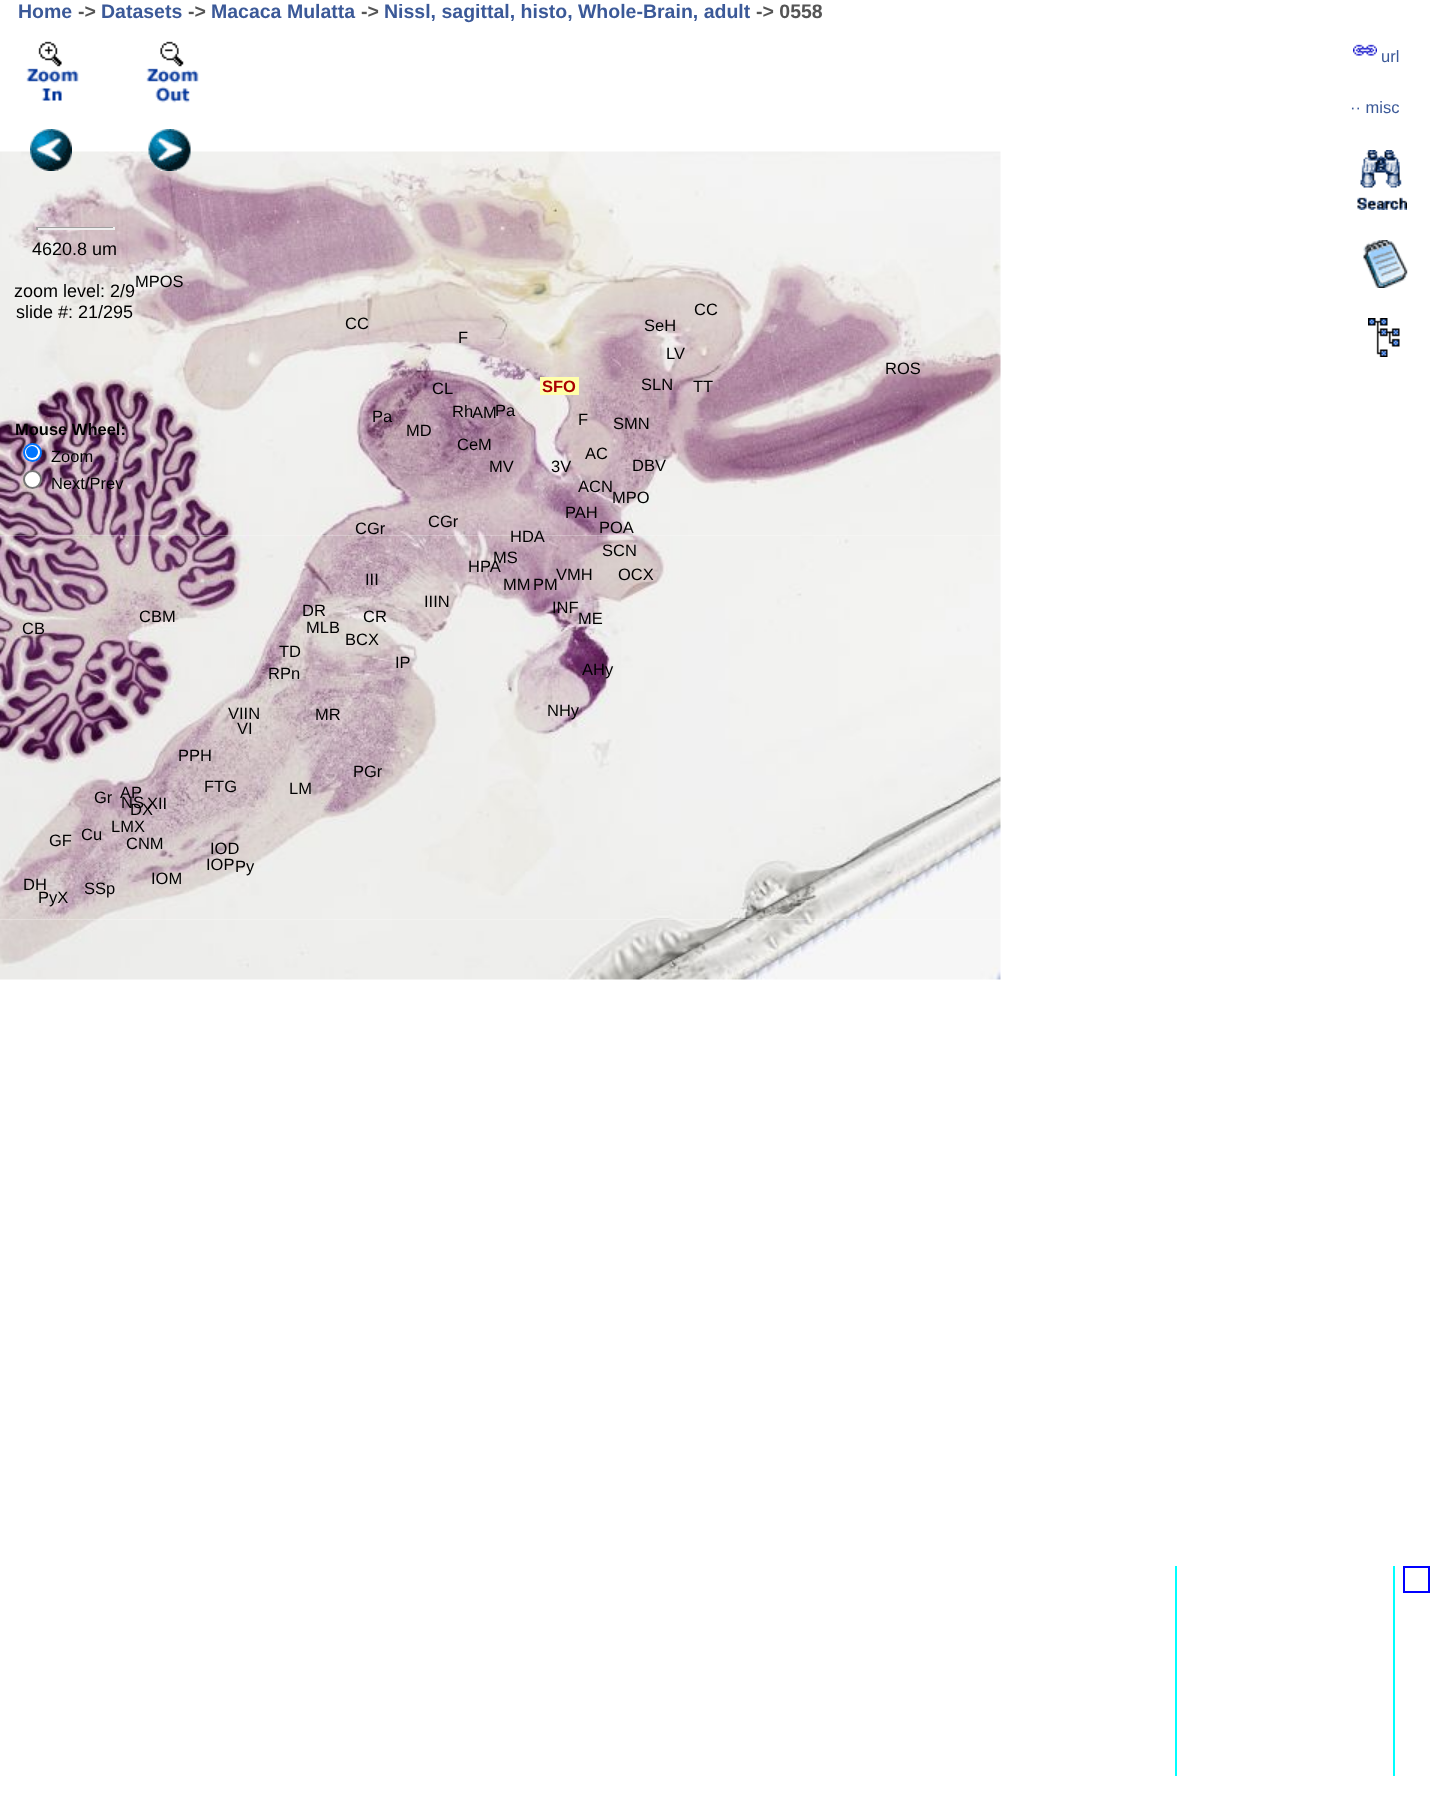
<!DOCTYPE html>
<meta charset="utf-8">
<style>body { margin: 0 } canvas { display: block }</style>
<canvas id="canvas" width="1444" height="1803"></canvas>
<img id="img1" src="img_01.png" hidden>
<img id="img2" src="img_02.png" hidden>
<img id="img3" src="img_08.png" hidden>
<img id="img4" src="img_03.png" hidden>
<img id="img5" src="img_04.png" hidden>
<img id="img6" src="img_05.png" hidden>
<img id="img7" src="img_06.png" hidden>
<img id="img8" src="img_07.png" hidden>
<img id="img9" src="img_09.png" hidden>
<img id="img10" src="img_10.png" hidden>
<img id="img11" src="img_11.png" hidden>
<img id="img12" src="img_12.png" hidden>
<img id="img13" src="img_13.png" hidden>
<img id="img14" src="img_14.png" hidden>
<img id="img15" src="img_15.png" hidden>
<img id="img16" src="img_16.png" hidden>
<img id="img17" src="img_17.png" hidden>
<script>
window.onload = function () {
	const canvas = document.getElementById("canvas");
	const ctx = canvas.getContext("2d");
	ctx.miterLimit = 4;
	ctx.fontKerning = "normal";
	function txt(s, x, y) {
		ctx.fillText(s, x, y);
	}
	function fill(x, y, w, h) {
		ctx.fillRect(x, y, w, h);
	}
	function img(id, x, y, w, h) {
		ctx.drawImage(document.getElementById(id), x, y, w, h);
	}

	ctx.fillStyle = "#FFFFFF";
	fill(0, 0, 1444, 1803);
	img("img1", 1353, 44, 24, 12);
	img("img2", 1357, 150, 50, 60);
	img("img3", 0, 151, 249, 385);
	ctx.fillStyle = "#9F9F9F";
	fill(36, 227, 78, 1);
	ctx.fillStyle = "#EEEEEE";
	fill(113, 227, 2, 3);
	fill(36, 228, 78, 2);
	ctx.fillStyle = "#9F9F9F";
	fill(36, 227, 2, 3);
	img("img4", 1363, 240, 45, 48);
	img("img5", 26, 41, 53, 60);
	img("img6", 146, 41, 53, 62);
	img("img7", 30, 129, 42, 42);
	img("img8", 148, 129, 43, 42);
	img("img9", 249, 151, 384, 385);
	img("img10", 633, 151, 368, 385);
	img("img11", 0, 535, 249, 385);
	img("img12", 249, 535, 384, 385);
	img("img13", 633, 535, 368, 385);
	img("img14", 0, 919, 249, 61);
	img("img15", 249, 919, 384, 61);
	img("img16", 633, 919, 368, 61);
	ctx.fillStyle = "#FFFFAA";
	fill(540, 377, 39, 18);
	ctx.save();
	ctx.beginPath();
	ctx.rect(1142, 1566, 288, 210);
	ctx.clip();
	ctx.strokeStyle = "#00FFFF";
	ctx.lineWidth = 2;
	ctx.strokeRect(1176, 1536, 218, 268);
	ctx.restore();
	ctx.strokeStyle = "#0000FF";
	ctx.lineWidth = 2;
	ctx.strokeRect(1404, 1567, 25, 25);
	img("img17", 1368, 318, 32, 39);
	ctx.fillStyle = "#FFFFFF";
	ctx.beginPath();
	ctx.arc(32.5, 452.5, 8.5, 0, Math.PI * 2);
	ctx.fill();
	ctx.strokeStyle = "#0075FF";
	ctx.stroke();
	ctx.fillStyle = "#0075FF";
	ctx.beginPath();
	ctx.arc(32, 452, 6, 0, Math.PI * 2);
	ctx.fill();
	ctx.fillStyle = "#FFFFFF";
	ctx.beginPath();
	ctx.arc(32.5, 479.5, 8.5, 0, Math.PI * 2);
	ctx.fill();
	ctx.strokeStyle = "#767676";
	ctx.stroke();
	ctx.font = "bold 19.5px Liberation Sans";
	ctx.fillStyle = "#3B5998";
	txt("Home", 18, 18);
	ctx.fillStyle = "#555555";
	txt("->", 78, 18);
	ctx.fillStyle = "#3B5998";
	txt("Datasets", 101, 18);
	ctx.fillStyle = "#555555";
	txt("->", 188, 18);
	ctx.fillStyle = "#3B5998";
	txt("Macaca Mulatta", 211, 18);
	ctx.fillStyle = "#555555";
	txt("->", 361, 18);
	ctx.fillStyle = "#3B5998";
	txt("Nissl, sagittal, histo, Whole-Brain, adult", 384, 18);
	ctx.fillStyle = "#555555";
	txt("-> 0558", 756, 18);
	ctx.font = "16.5px Liberation Sans";
	ctx.fillStyle = "#3B5998";
	txt("url", 1381, 62);
	txt("·· misc", 1350, 113);
	ctx.font = "18px Liberation Sans";
	ctx.fillStyle = "#000000";
	txt("4620.8 um", 32, 255);
	txt("zoom level: 2/9", 14, 297);
	txt("slide #: 21/295", 16, 318);
	ctx.font = "16.5px Liberation Sans";
	txt("MPOS", 135, 287);
	txt("CC", 694, 315);
	txt("CC", 345, 329);
	txt("SeH", 644, 331);
	txt("F", 458, 343);
	txt("LV", 666, 359);
	txt("ROS", 885, 374);
	txt("CL", 432, 394);
	ctx.font = "bold 16.5px Liberation Sans";
	ctx.fillStyle = "#AA0000";
	txt("SFO", 542, 392);
	ctx.font = "16.5px Liberation Sans";
	ctx.fillStyle = "#000000";
	txt("SLN", 641, 390);
	txt("TT", 693, 392);
	txt("Pa", 372, 422);
	txt("MD", 406, 436);
	txt("Rh", 452, 417);
	txt("AM", 472, 418);
	txt("Pa", 495, 416);
	txt("F", 578, 425);
	txt("SMN", 613, 429);
	txt("CeM", 457, 450);
	txt("AC", 585, 459);
	txt("MV", 489, 472);
	txt("3V", 551, 472);
	txt("DBV", 632, 471);
	txt("ACN", 578, 492);
	txt("MPO", 612, 503);
	txt("PAH", 565, 518);
	txt("CGr", 355, 534);
	txt("CGr", 428, 527);
	txt("HDA", 510, 542);
	txt("POA", 599, 533);
	txt("MS", 493, 563);
	txt("SCN", 602, 556);
	txt("HPA", 468, 572);
	txt("III", 365, 585);
	txt("MM", 503, 590);
	txt("PM", 533, 590);
	txt("VMH", 556, 580);
	txt("OCX", 618, 580);
	txt("CBM", 139, 622);
	txt("DR", 302, 616);
	txt("CR", 363, 622);
	txt("IIIN", 424, 607);
	txt("INF", 552, 613);
	txt("ME", 578, 624);
	txt("CB", 22, 634);
	txt("MLB", 306, 633);
	txt("BCX", 345, 645);
	txt("TD", 279, 657);
	txt("RPn", 268, 679);
	txt("IP", 395, 668);
	txt("AHy", 582, 675);
	txt("VIIN", 228, 719);
	txt("MR", 315, 720);
	txt("NHy", 547, 716);
	txt("VI", 237, 734);
	txt("PPH", 178, 761);
	txt("PGr", 353, 777);
	txt("Gr", 94, 803);
	txt("AP", 120, 798);
	txt("FTG", 204, 792);
	txt("LM", 289, 794);
	txt("NS", 121, 808);
	txt("DX", 130, 815);
	txt("XII", 147, 809);
	txt("LMX", 111, 832);
	txt("GF", 49, 846);
	txt("Cu", 81, 840);
	txt("CNM", 126, 849);
	txt("IOD", 210, 854);
	txt("IOP", 206, 870);
	txt("Py", 235, 872);
	txt("DH", 23, 890);
	txt("PyX", 38, 903);
	txt("SSp", 84, 894);
	txt("IOM", 151, 884);
	ctx.font = "bold 16.5px Liberation Sans";
	txt("Mouse Wheel:", 15, 435);
	ctx.font = "16.5px Liberation Sans";
	txt("Zoom", 51, 462);
	txt("Next/Prev", 51, 489);
};
</script>
